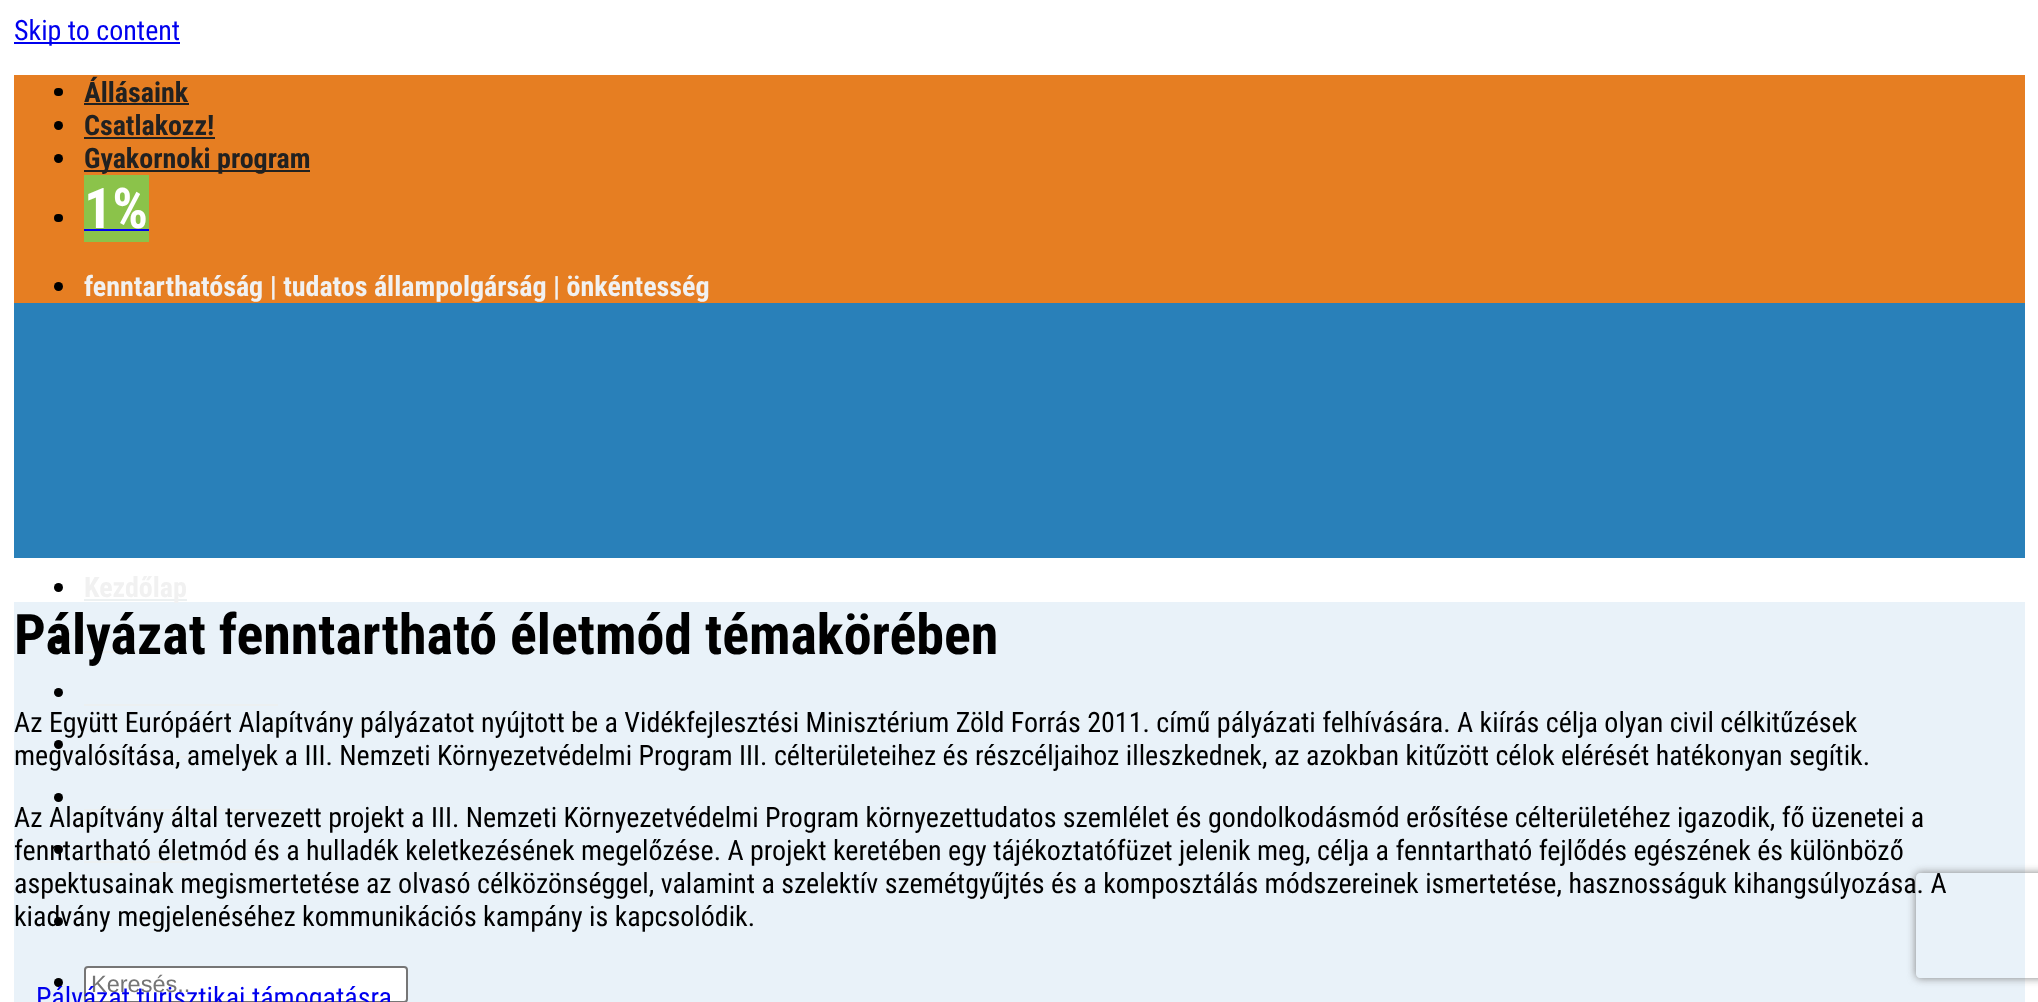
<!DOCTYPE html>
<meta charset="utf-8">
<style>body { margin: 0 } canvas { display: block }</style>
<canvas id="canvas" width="2038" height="1002"></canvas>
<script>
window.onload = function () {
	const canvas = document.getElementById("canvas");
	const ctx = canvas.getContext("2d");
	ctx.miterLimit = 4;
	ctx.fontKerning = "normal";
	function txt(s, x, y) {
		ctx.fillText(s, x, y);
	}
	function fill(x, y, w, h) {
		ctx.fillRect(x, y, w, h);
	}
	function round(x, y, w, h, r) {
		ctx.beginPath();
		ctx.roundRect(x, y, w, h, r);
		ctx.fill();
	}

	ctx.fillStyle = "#FFFFFF";
	fill(0, 0, 2038, 1002);
	ctx.fillStyle = "#0000EE";
	fill(14, 42, 166, 2);
	ctx.fillStyle = "#2980B9";
	fill(14, 303, 2011, 255);
	ctx.fillStyle = "#E67E22";
	fill(14, 75, 2011, 228);
	ctx.fillStyle = "#000000";
	round(54, 88, 9, 8, 4);
	ctx.fillStyle = "#212121";
	fill(84, 103, 105, 2);
	ctx.fillStyle = "#000000";
	ctx.beginPath();
	ctx.arc(58.5, 125.5, 4.5, 0, Math.PI * 2);
	ctx.fill();
	ctx.fillStyle = "#212121";
	fill(84, 137, 131, 2);
	ctx.fillStyle = "#000000";
	ctx.beginPath();
	ctx.arc(58.5, 158.5, 4.5, 0, Math.PI * 2);
	ctx.fill();
	ctx.fillStyle = "#212121";
	fill(84, 170, 226, 2);
	ctx.fillStyle = "#000000";
	round(54, 214, 9, 8, 4);
	ctx.fillStyle = "#8BC34A";
	fill(84, 175, 65, 67);
	ctx.fillStyle = "#0000EE";
	fill(84, 229, 65, 2);
	ctx.fillStyle = "#000000";
	ctx.beginPath();
	ctx.arc(58.5, 286.5, 4.5, 0, Math.PI * 2);
	ctx.fill();
	ctx.beginPath();
	ctx.arc(58.5, 587.5, 4.5, 0, Math.PI * 2);
	ctx.fill();
	ctx.fillStyle = "#ECF0F1";
	fill(84, 599, 103, 2);
	ctx.fillStyle = "#E9F2F9";
	fill(14, 602, 2011, 400);
	ctx.fillStyle = "#000000";
	ctx.beginPath();
	ctx.arc(58.5, 639.5, 4.5, 0, Math.PI * 2);
	ctx.fill();
	ctx.fillStyle = "#ECF0F1";
	fill(84, 651, 60, 2);
	ctx.fillStyle = "#000000";
	ctx.beginPath();
	ctx.arc(58.5, 692.5, 4.5, 0, Math.PI * 2);
	ctx.fill();
	ctx.fillStyle = "#ECF0F1";
	fill(84, 704, 194, 2);
	ctx.fillStyle = "#000000";
	ctx.beginPath();
	ctx.arc(58.5, 744.5, 4.5, 0, Math.PI * 2);
	ctx.fill();
	ctx.fillStyle = "#ECF0F1";
	fill(84, 756, 109, 2);
	ctx.fillStyle = "#000000";
	ctx.beginPath();
	ctx.arc(58.5, 797.5, 4.5, 0, Math.PI * 2);
	ctx.fill();
	ctx.fillStyle = "#ECF0F1";
	fill(84, 809, 200, 2);
	ctx.fillStyle = "#000000";
	ctx.beginPath();
	ctx.arc(58.5, 849.5, 4.5, 0, Math.PI * 2);
	ctx.fill();
	ctx.fillStyle = "#ECF0F1";
	fill(84, 861, 110, 2);
	ctx.fillStyle = "#000000";
	ctx.beginPath();
	ctx.arc(58.5, 921.5, 4.5, 0, Math.PI * 2);
	ctx.fill();
	ctx.beginPath();
	ctx.arc(58.5, 982.5, 4.5, 0, Math.PI * 2);
	ctx.fill();
	ctx.fillStyle = "#FFFFFF";
	ctx.beginPath();
	ctx.roundRect(85, 967, 322, 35, 3);
	ctx.fill();
	ctx.strokeStyle = "#767676";
	ctx.lineWidth = 2;
	ctx.stroke();
	ctx.save();
	ctx.beginPath();
	ctx.moveTo(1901, 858);
	ctx.lineTo(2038, 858);
	ctx.lineTo(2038, 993);
	ctx.lineTo(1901, 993);
	ctx.closePath();
	ctx.moveTo(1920, 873);
	ctx.lineTo(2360, 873);
	ctx.bezierCurveTo(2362, 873, 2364, 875, 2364, 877);
	ctx.lineTo(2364, 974);
	ctx.bezierCurveTo(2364, 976, 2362, 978, 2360, 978);
	ctx.lineTo(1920, 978);
	ctx.bezierCurveTo(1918, 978, 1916, 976, 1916, 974);
	ctx.lineTo(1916, 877);
	ctx.bezierCurveTo(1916, 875, 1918, 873, 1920, 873);
	ctx.closePath();
	ctx.clip("evenodd");
	ctx.fillStyle = "#808080";
	ctx.filter = "blur(4.5px)";
	ctx.beginPath();
	ctx.roundRect(1916, 873, 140, 105, 4);
	ctx.fill();
	ctx.filter = "none";
	ctx.restore();
	ctx.font = "28px Roboto Condensed";
	ctx.fillStyle = "#0000EE";
	txt("Skip to content", 14, 40);
	ctx.font = "bold 28px Roboto Condensed";
	ctx.fillStyle = "#212121";
	txt("Állásaink", 84, 102);
	txt("Csatlakozz!", 84, 135);
	txt("Gyakornoki program", 84, 168);
	ctx.font = "bold 56px Roboto Condensed";
	ctx.fillStyle = "#FFFFFF";
	txt("1%", 84, 228);
	ctx.font = "bold 28px Roboto Condensed";
	ctx.fillStyle = "#F1F1F1";
	txt("fenntarthatóság | tudatos állampolgárság | önkéntesség", 84, 296);
	txt("Kezdőlap", 84, 597);
	ctx.font = "23.5px Liberation Sans";
	ctx.fillStyle = "#757575";
	txt("Keresés..", 91, 992);
	ctx.font = "bold 56px Roboto Condensed";
	ctx.fillStyle = "#000000";
	txt("Pályázat fenntartható életmód témakörében", 14, 654);
	ctx.font = "28px Roboto Condensed";
	txt("Az Együtt Európáért Alapítvány pályázatot nyújtott be a Vidékfejlesztési Minisztérium Zöld Forrás 2011. című pályázati felhívására. A kiírás célja olyan civil célkitűzések", 14, 732);
	txt("megvalósítása, amelyek a III. Nemzeti Környezetvédelmi Program III. célterületeihez és részcéljaihoz illeszkednek, az azokban kitűzött célok elérését hatékonyan segítik.", 14, 765);
	txt("Az Alapítvány által tervezett projekt a III. Nemzeti Környezetvédelmi Program környezettudatos szemlélet és gondolkodásmód erősítése célterületéhez igazodik, fő üzenetei a", 14, 827);
	txt("fenntartható életmód és a hulladék keletkezésének megelőzése. A projekt keretében egy tájékoztatófüzet jelenik meg, célja a fenntartható fejlődés egészének és különböző", 14, 860);
	txt("aspektusainak megismertetése az olvasó célközönséggel, valamint a szelektív szemétgyűjtés és a komposztálás módszereinek ismertetése, hasznosságuk kihangsúlyozása. A", 14, 893);
	txt("kiadvány megjelenéséhez kommunikációs kampány is kapcsolódik.", 14, 926);
	ctx.fillStyle = "#0000EE";
	txt("Pályázat turisztikai támogatásra", 36, 1007);
};
</script>
